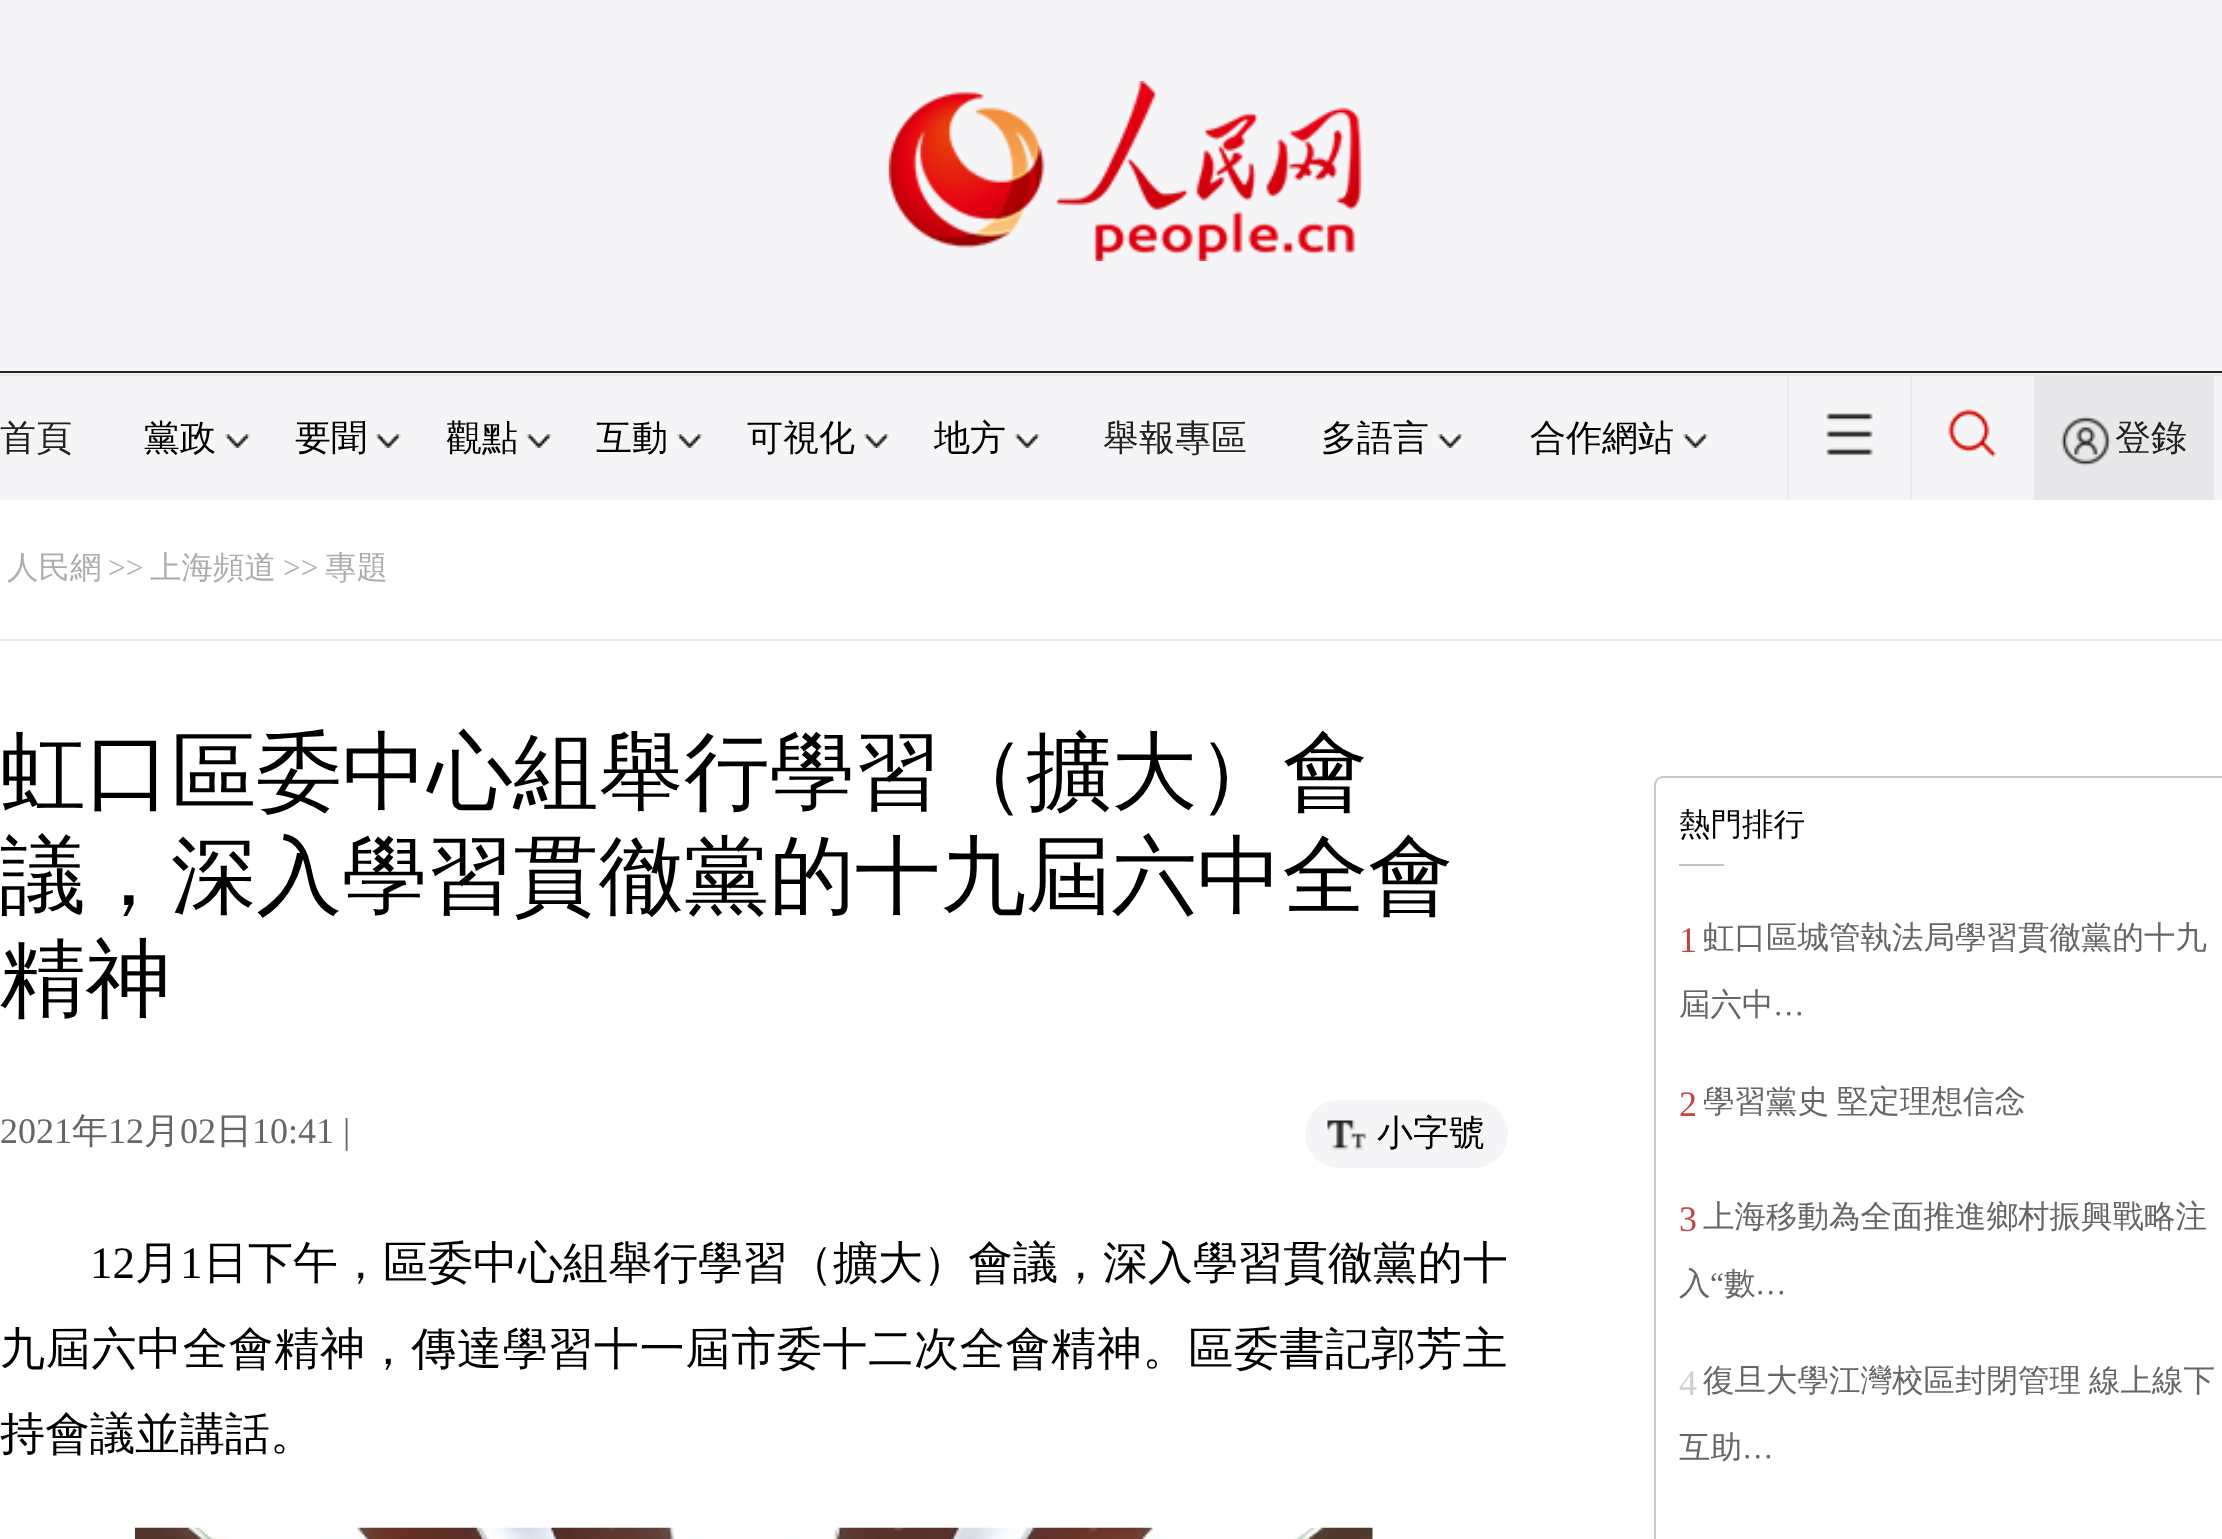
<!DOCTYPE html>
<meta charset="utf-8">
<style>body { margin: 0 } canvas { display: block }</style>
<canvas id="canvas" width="2222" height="1539"></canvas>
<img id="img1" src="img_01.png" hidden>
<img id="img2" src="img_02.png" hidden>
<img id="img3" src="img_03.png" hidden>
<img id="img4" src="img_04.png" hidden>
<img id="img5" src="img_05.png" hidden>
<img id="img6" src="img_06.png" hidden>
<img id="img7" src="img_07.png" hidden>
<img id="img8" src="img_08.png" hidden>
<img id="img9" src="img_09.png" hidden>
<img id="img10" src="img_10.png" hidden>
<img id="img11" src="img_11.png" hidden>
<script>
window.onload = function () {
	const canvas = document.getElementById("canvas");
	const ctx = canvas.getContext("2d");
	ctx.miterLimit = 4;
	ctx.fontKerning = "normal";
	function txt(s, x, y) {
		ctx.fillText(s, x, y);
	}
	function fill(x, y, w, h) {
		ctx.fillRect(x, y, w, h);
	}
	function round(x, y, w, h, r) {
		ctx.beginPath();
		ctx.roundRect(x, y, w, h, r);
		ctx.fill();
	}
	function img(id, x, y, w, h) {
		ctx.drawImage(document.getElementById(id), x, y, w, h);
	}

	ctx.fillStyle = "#FFFFFF";
	fill(0, 0, 2222, 1539);
	ctx.fillStyle = "#F5F5F7";
	fill(0, 0, 2222, 374);
	ctx.fillStyle = "#212121";
	fill(0, 371, 2222, 2);
	img("img1", 888, 81, 474, 180);
	ctx.fillStyle = "#E9E9E9";
	fill(0, 374, 2222, 2);
	ctx.fillStyle = "#F5F5F7";
	fill(0, 376, 2222, 124);
	img("img2", 225, 434, 25, 14);
	img("img3", 375, 434, 26, 14);
	img("img4", 526, 434, 26, 14);
	img("img5", 677, 434, 25, 14);
	img("img6", 864, 434, 25, 14);
	img("img3", 1014, 434, 26, 14);
	img("img3", 1437, 434, 26, 14);
	img("img6", 1683, 434, 25, 14);
	ctx.fillStyle = "#EBEBED";
	fill(1910, 376, 2, 124);
	fill(1787, 376, 2, 124);
	img("img7", 1826, 413, 47, 43);
	img("img8", 1948, 409, 50, 50);
	ctx.fillStyle = "#E8E8EA";
	fill(2034, 376, 180, 124);
	img("img9", 2061, 416, 50, 50);
	ctx.fillStyle = "#ECECEC";
	fill(0, 639, 2222, 2);
	ctx.fillStyle = "#F5F5F7";
	round(1305, 1100, 203, 68, 34);
	img("img10", 1327, 1120, 39, 31);
	img("img11", 135, 1527, 1238, 12);
	ctx.beginPath();
	ctx.roundRect(1655, 777, 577, 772, 8);
	ctx.strokeStyle = "#C9C9C9";
	ctx.lineWidth = 2;
	ctx.stroke();
	ctx.fillStyle = "#C1C1C1";
	fill(1679, 864, 45, 2);
	ctx.font = "500 36px WenQuanYi Zen Hei";
	ctx.fillStyle = "#212121";
	txt("首頁", 0, 450);
	ctx.fillStyle = "#000000";
	txt("黨政", 144, 450);
	txt("要聞", 295, 450);
	txt("觀點", 446, 450);
	txt("互動", 596, 450);
	txt("可視化", 747, 450);
	txt("地方", 934, 450);
	ctx.fillStyle = "#212121";
	txt("舉報專區", 1103, 450);
	ctx.fillStyle = "#000000";
	txt("多語言", 1321, 450);
	txt("合作網站", 1530, 450);
	ctx.fillStyle = "#212121";
	txt("登錄", 2115, 450);
	ctx.font = "500 31.5px WenQuanYi Zen Hei";
	ctx.fillStyle = "#ADADAD";
	txt("人民網", 7, 578);
	ctx.font = "31.5px Liberation Serif";
	txt(">>", 108, 578);
	ctx.font = "500 31.5px WenQuanYi Zen Hei";
	txt("上海頻道", 150, 578);
	ctx.font = "31.5px Liberation Serif";
	txt(">>", 283, 578);
	ctx.font = "500 31.5px WenQuanYi Zen Hei";
	txt("專題", 325, 578);
	ctx.font = "500 85.5px WenQuanYi Zen Hei";
	ctx.fillStyle = "#000000";
	txt("虹口區委中心組舉行學習（擴大）會", 0, 801);
	txt("議，深入學習貫徹黨的十九屆六中全會", 0, 905);
	txt("精神", 0, 1008);
	ctx.font = "36px Liberation Serif";
	ctx.fillStyle = "#666666";
	txt("2021", 0, 1143);
	ctx.font = "500 36px WenQuanYi Zen Hei";
	txt("年", 72, 1143);
	ctx.font = "36px Liberation Serif";
	txt("12", 108, 1143);
	ctx.font = "500 36px WenQuanYi Zen Hei";
	txt("月", 144, 1143);
	ctx.font = "36px Liberation Serif";
	txt("02", 180, 1143);
	ctx.font = "500 36px WenQuanYi Zen Hei";
	txt("日", 216, 1143);
	ctx.font = "36px Liberation Serif";
	txt("10:41 |", 252, 1143);
	ctx.font = "500 36px WenQuanYi Zen Hei";
	ctx.fillStyle = "#000000";
	txt("小字號", 1377, 1145);
	ctx.font = "45px Liberation Serif";
	txt("12", 90, 1278);
	ctx.font = "500 45px WenQuanYi Zen Hei";
	txt("月", 135, 1278);
	ctx.font = "45px Liberation Serif";
	txt("1", 180, 1278);
	ctx.font = "500 45px WenQuanYi Zen Hei";
	txt("日下午，區委中心組舉行學習（擴大）會議，深入學習貫徹黨的十", 203, 1278);
	ctx.letterSpacing = "0.7px";
	txt("九屆六中全會精神，傳達學習十一屆市委十二次全會精神。區委書記郭芳主", 0, 1364);
	ctx.letterSpacing = "0px";
	txt("持會議並講話。", 0, 1449);
	ctx.font = "500 31.5px WenQuanYi Zen Hei";
	txt("熱門排行", 1679, 835);
	ctx.font = "36px Liberation Serif";
	ctx.fillStyle = "#C54242";
	txt("1", 1679, 952);
	ctx.font = "500 31.5px WenQuanYi Zen Hei";
	ctx.fillStyle = "#666666";
	txt("虹口區城管執法局學習貫徹黨的十九", 1703, 948);
	txt("屆六中", 1679, 1015);
	ctx.font = "31.5px Liberation Serif";
	txt("…", 1773, 1015);
	ctx.font = "36px Liberation Serif";
	ctx.fillStyle = "#C54242";
	txt("2", 1679, 1116);
	ctx.font = "500 31.5px WenQuanYi Zen Hei";
	ctx.fillStyle = "#666666";
	txt("學習黨史", 1703, 1112);
	txt("堅定理想信念", 1837, 1112);
	ctx.font = "36px Liberation Serif";
	ctx.fillStyle = "#C54242";
	txt("3", 1679, 1231);
	ctx.font = "500 31.5px WenQuanYi Zen Hei";
	ctx.fillStyle = "#666666";
	txt("上海移動為全面推進鄉村振興戰略注", 1703, 1227);
	txt("入", 1679, 1294);
	ctx.font = "31.5px Liberation Serif";
	txt("“", 1710, 1294);
	ctx.font = "500 31.5px WenQuanYi Zen Hei";
	txt("數", 1724, 1294);
	ctx.font = "31.5px Liberation Serif";
	txt("…", 1755, 1294);
	ctx.font = "36px Liberation Serif";
	ctx.fillStyle = "#D0D0D0";
	txt("4", 1679, 1395);
	ctx.font = "500 31.5px WenQuanYi Zen Hei";
	ctx.fillStyle = "#666666";
	txt("復旦大學江灣校區封閉管理", 1703, 1391);
	txt("線上線下", 2089, 1391);
	txt("互助", 1679, 1458);
	ctx.font = "31.5px Liberation Serif";
	txt("…", 1742, 1458);
};
</script>
